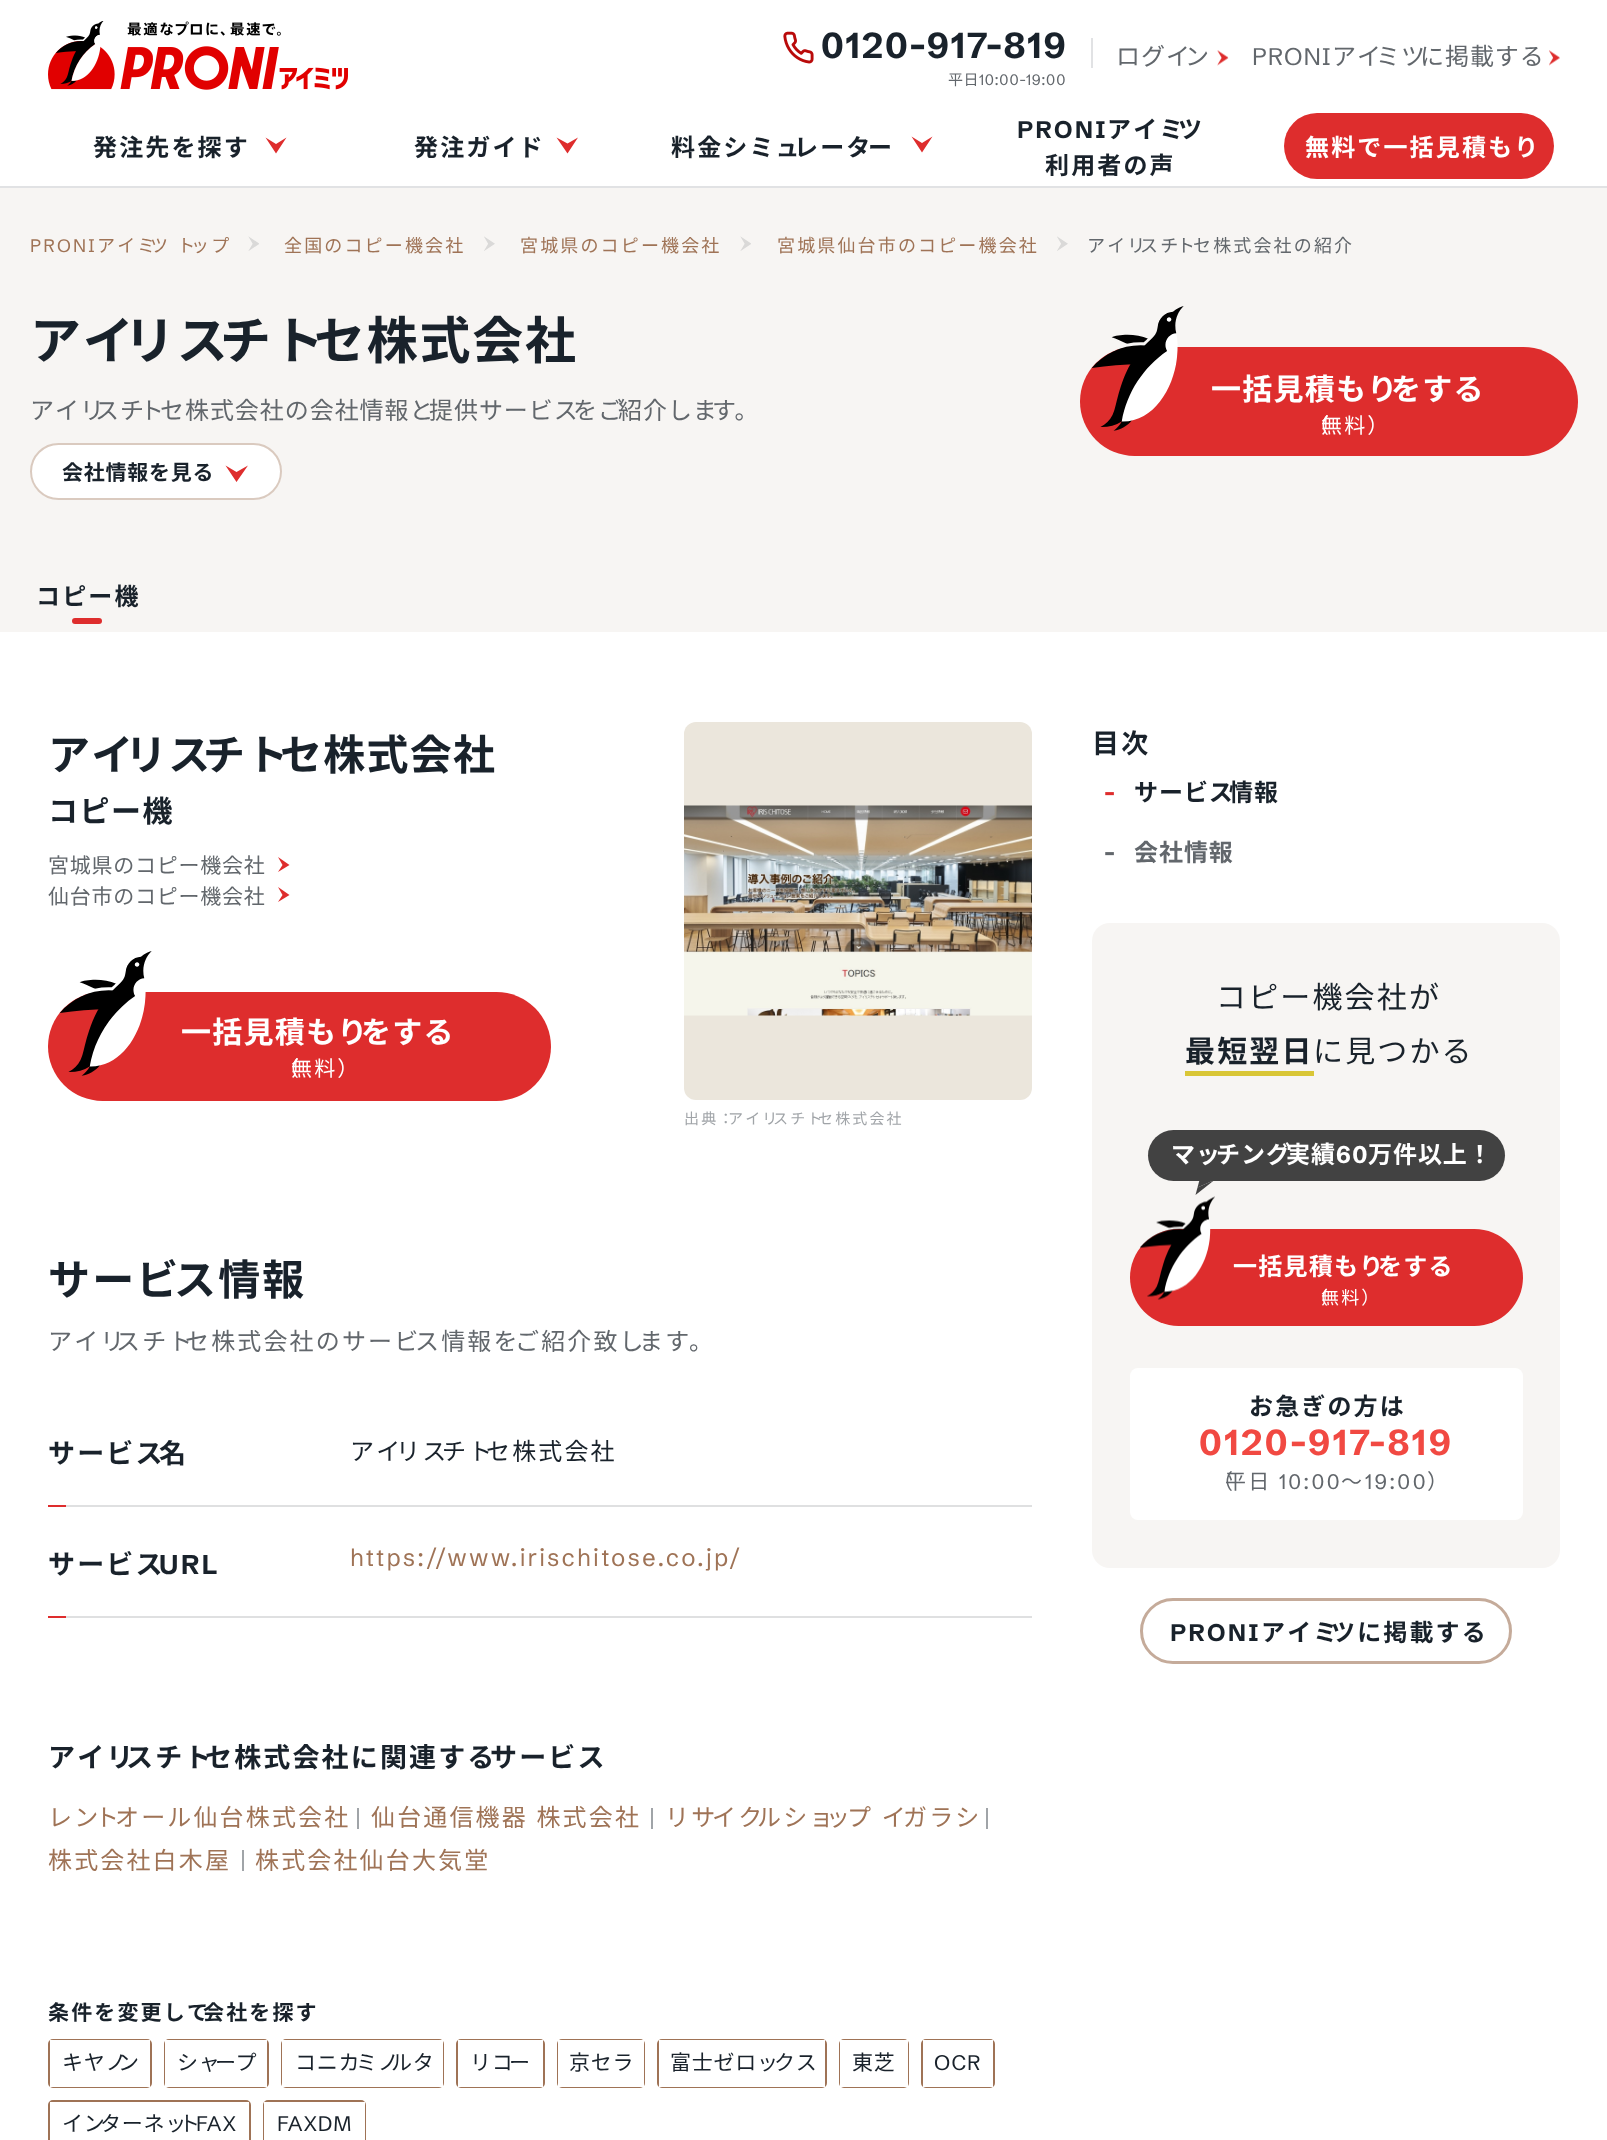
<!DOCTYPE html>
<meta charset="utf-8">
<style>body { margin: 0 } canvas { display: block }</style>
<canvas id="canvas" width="1607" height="2140"></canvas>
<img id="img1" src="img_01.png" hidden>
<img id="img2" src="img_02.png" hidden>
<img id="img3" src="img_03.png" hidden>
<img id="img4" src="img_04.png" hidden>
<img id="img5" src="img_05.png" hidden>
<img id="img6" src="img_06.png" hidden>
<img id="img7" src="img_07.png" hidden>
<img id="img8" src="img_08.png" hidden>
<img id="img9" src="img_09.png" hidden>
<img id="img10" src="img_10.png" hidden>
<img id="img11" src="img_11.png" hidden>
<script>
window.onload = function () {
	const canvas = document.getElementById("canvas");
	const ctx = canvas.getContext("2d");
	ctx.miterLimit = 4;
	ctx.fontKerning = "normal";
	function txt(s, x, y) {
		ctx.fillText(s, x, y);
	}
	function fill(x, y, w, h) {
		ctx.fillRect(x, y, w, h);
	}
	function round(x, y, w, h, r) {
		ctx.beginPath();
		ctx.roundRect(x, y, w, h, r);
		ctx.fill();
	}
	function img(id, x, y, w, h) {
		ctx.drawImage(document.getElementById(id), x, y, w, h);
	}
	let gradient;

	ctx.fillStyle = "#FFFFFF";
	fill(0, 0, 1607, 2140);
	img("img1", 48, 21, 300, 69);
	img("img2", 783, 31, 31, 33);
	ctx.fillStyle = "#E1E2E4";
	fill(1091, 38, 2, 30);
	img("img3", 1217, 50, 12, 16);
	img("img4", 1549, 50, 11, 16);
	fill(0, 186, 1607, 2);
	ctx.fillStyle = "#DE2D2D";
	ctx.beginPath();
	ctx.moveTo(265.5, 137.5);
	ctx.lineTo(276, 153.5);
	ctx.lineTo(286.5, 137.5);
	ctx.lineTo(276, 144);
	ctx.closePath();
	ctx.fill("evenodd");
	ctx.beginPath();
	ctx.moveTo(556.5, 137.5);
	ctx.lineTo(567.5, 153.5);
	ctx.lineTo(578, 137.5);
	ctx.lineTo(567.5, 143.5);
	ctx.closePath();
	ctx.fill("evenodd");
	ctx.beginPath();
	ctx.moveTo(911.5, 136.5);
	ctx.lineTo(922, 152.5);
	ctx.lineTo(932.5, 136.5);
	ctx.lineTo(922, 143);
	ctx.closePath();
	ctx.fill("evenodd");
	round(1284, 113, 270, 66, 33);
	ctx.fillStyle = "#F7F5F3";
	fill(0, 188, 1607, 444);
	img("img5", 248, 236, 11, 15);
	img("img6", 484, 236, 11, 15);
	img("img7", 740, 236, 11, 15);
	img("img6", 1057, 236, 11, 15);
	ctx.fillStyle = "#FFFFFF";
	round(30, 443, 252, 57, 28.5);
	ctx.beginPath();
	ctx.roundRect(31, 444, 250, 55, 27.5);
	ctx.strokeStyle = "rgba(159, 115, 86, 0.38)";
	ctx.lineWidth = 2;
	ctx.stroke();
	ctx.fillStyle = "#DE2D2D";
	ctx.beginPath();
	ctx.moveTo(225.5, 465.5);
	ctx.lineTo(236.5, 482);
	ctx.lineTo(248, 465.5);
	ctx.lineTo(236.5, 472);
	ctx.closePath();
	ctx.fill("evenodd");
	round(1080, 347, 498, 109, 54.5);
	img("img8", 1091, 306, 93, 125);
	round(72, 618, 30, 6, 3);
	ctx.beginPath();
	ctx.moveTo(278, 872);
	ctx.lineTo(289.5, 865);
	ctx.lineTo(278, 857);
	ctx.lineTo(282.5, 865);
	ctx.closePath();
	ctx.moveTo(278, 902);
	ctx.lineTo(289.5, 895);
	ctx.lineTo(278, 887);
	ctx.lineTo(282.5, 895);
	ctx.closePath();
	ctx.fill("evenodd");
	round(48, 992, 503, 109, 54.5);
	img("img9", 59, 951, 93, 125);
	ctx.fillStyle = "#EBE6DC";
	round(684, 722, 348, 378, 12);
	img("img10", 684, 805, 348, 211);
	ctx.fillStyle = "#DE2D2D";
	fill(48, 1505, 18, 2);
	ctx.fillStyle = "#DFE0E1";
	fill(66, 1505, 966, 2);
	ctx.fillStyle = "#DE2D2D";
	fill(48, 1616, 18, 2);
	ctx.fillStyle = "#DFE0E1";
	fill(66, 1616, 966, 2);
	ctx.fillStyle = "#A0A4A8";
	fill(357, 1808, 2, 21);
	fill(651, 1808, 2, 21);
	fill(986, 1808, 2, 21);
	fill(242, 1850, 2, 21);
	ctx.beginPath();
	ctx.roundRect(49, 2040, 102, 47, 4);
	ctx.strokeStyle = "#9F7356";
	ctx.stroke();
	ctx.fillStyle = "#FFFFFF";
	fill(50, 2040, 100, 47);
	ctx.beginPath();
	ctx.roundRect(165, 2040, 103, 47, 4);
	ctx.stroke();
	fill(165, 2040, 102, 47);
	ctx.beginPath();
	ctx.roundRect(282, 2040, 161, 47, 4);
	ctx.stroke();
	fill(282, 2040, 161, 47);
	ctx.beginPath();
	ctx.roundRect(457, 2040, 87, 47, 4);
	ctx.stroke();
	fill(458, 2040, 85, 47);
	ctx.beginPath();
	ctx.roundRect(558, 2040, 86, 47, 4);
	ctx.stroke();
	fill(558, 2040, 86, 47);
	ctx.beginPath();
	ctx.roundRect(658, 2040, 168, 47, 4);
	ctx.stroke();
	fill(659, 2040, 166, 47);
	ctx.beginPath();
	ctx.roundRect(840, 2040, 68, 47, 4);
	ctx.stroke();
	fill(840, 2040, 68, 47);
	ctx.beginPath();
	ctx.roundRect(922, 2040, 72, 47, 4);
	ctx.stroke();
	fill(923, 2040, 70, 47);
	ctx.beginPath();
	ctx.roundRect(49, 2101, 201, 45, 4);
	ctx.stroke();
	fill(50, 2102, 199, 3);
	ctx.beginPath();
	ctx.roundRect(264, 2101, 101, 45, 4);
	ctx.stroke();
	fill(264, 2102, 101, 38);
	ctx.fillStyle = "#F7F5F3";
	round(1092, 923, 468, 645, 18);
	gradient = ctx.createLinearGradient(1250, 1032, 1250, 1076);
	gradient.addColorStop(0, "#F7F5F3");
	gradient.addColorStop(0.88, "#F7F5F3");
	gradient.addColorStop(0.88, "#D9C636");
	gradient.addColorStop(1, "#D9C636");
	ctx.fillStyle = gradient;
	fill(1185, 1071, 129, 5);
	ctx.fillStyle = "#424242";
	round(1148, 1130, 357, 51, 25.5);
	ctx.beginPath();
	ctx.moveTo(1199.5, 1180);
	ctx.lineTo(1214.5, 1180);
	ctx.lineTo(1197.5, 1187.5);
	ctx.closePath();
	ctx.fill();
	ctx.beginPath();
	ctx.moveTo(1214.5, 1180);
	ctx.lineTo(1195.5, 1195);
	ctx.lineTo(1197.5, 1187.5);
	ctx.closePath();
	ctx.fill();
	ctx.fillStyle = "#DE2D2D";
	round(1130, 1229, 393, 97, 48.5);
	img("img11", 1140, 1196, 75, 104);
	ctx.fillStyle = "#FFFFFF";
	round(1130, 1368, 393, 152, 8);
	ctx.beginPath();
	ctx.roundRect(1141.5, 1599.5, 369, 63, 31.5);
	ctx.strokeStyle = "#C5AB9A";
	ctx.lineWidth = 3;
	ctx.stroke();
	ctx.letterSpacing = "1.5px";
	ctx.font = "bold 36px Schibsted Grotesk";
	ctx.fillStyle = "#19222B";
	txt("0120-917-819", 821, 58);
	ctx.letterSpacing = "0.6px";
	ctx.font = "15px Noto Sans JP";
	ctx.fillStyle = "#62676C";
	txt("平日", 948, 85);
	ctx.font = "15px Schibsted Grotesk";
	txt("10:00-19:00", 979, 85);
	ctx.letterSpacing = "0.95px";
	ctx.font = "24px Noto Sans JP";
	txt("ログイ", 1116, 65);
	txt("ン", 1185, 65);
	ctx.font = "24px Schibsted Grotesk";
	txt("PRONI", 1252, 65);
	ctx.font = "24px Noto Sans JP";
	txt("アイ", 1332, 65);
	txt("ミツ", 1376, 65);
	txt("に掲載する", 1420, 65);
	ctx.letterSpacing = "2.15px";
	ctx.font = "bold 24px Noto Sans JP";
	ctx.fillStyle = "#19222B";
	txt("発注先を探す", 93, 156);
	txt("発注ガイド", 414, 156);
	txt("料金シミュ", 671, 156);
	txt("レータ", 794, 156);
	txt("ー", 868, 156);
	ctx.font = "bold 24px Schibsted Grotesk";
	txt("PRONI", 1017, 138);
	ctx.font = "bold 24px Noto Sans JP";
	txt("アイミ", 1107, 138);
	txt("ツ", 1178, 138);
	txt("利用者の声", 1045, 174);
	ctx.fillStyle = "#FFFFFF";
	txt("無料で一括見積もり", 1305, 156);
	ctx.font = "18px Schibsted Grotesk";
	ctx.fillStyle = "#9F7356";
	txt("PRONI", 30, 252);
	ctx.wordSpacing = "1px";
	ctx.font = "18px Noto Sans JP";
	txt("アイミ", 97, 252);
	txt("ツ ト", 150, 252);
	txt("ップ", 191, 252);
	ctx.wordSpacing = "0px";
	txt("全国のコピー機会社", 284, 252);
	txt("宮城県のコピー機会社", 520, 252);
	txt("宮城県仙台市のコピー機会社", 777, 252);
	ctx.fillStyle = "#62676C";
	txt("アイリ", 1087, 252);
	txt("スチ", 1140, 252);
	txt("ト", 1177, 252);
	txt("セ株式会社の紹介", 1193, 252);
	ctx.letterSpacing = "1.75px";
	ctx.font = "bold 51px Noto Sans JP";
	ctx.fillStyle = "#19222B";
	txt("アイ", 30, 359);
	txt("リス", 124, 359);
	txt("チト", 220, 359);
	txt("セ株式会社", 314, 359);
	ctx.letterSpacing = "0.95px";
	ctx.font = "24px Noto Sans JP";
	ctx.fillStyle = "#62676C";
	txt("アイリ", 30, 419);
	txt("スチ", 95, 419);
	txt("ト", 140, 419);
	txt("セ株式会社の会社情報と", 160, 419);
	txt("提供サービス", 429, 419);
	txt("をご", 573, 419);
	txt("紹介しま", 618, 419);
	txt("す。", 712, 419);
	ctx.letterSpacing = "0.75px";
	ctx.font = "bold 21px Noto Sans JP";
	ctx.fillStyle = "#19222B";
	txt("会社情報を見る", 62, 480);
	ctx.letterSpacing = "1.25px";
	ctx.font = "bold 30px Noto Sans JP";
	ctx.fillStyle = "#FFFFFF";
	txt("一括見積もり", 1211, 400);
	txt("をする", 1391, 400);
	ctx.letterSpacing = "2.15px";
	ctx.font = "21px Noto Sans JP";
	txt("（", 1308, 433);
	txt("無料）", 1321, 433);
	ctx.font = "bold 24px Noto Sans JP";
	ctx.fillStyle = "#19222B";
	txt("コピー機", 36, 605);
	ctx.letterSpacing = "1.25px";
	ctx.font = "bold 42px Noto Sans JP";
	txt("アイ", 48, 770);
	txt("リス", 125, 770);
	txt("チト", 203, 770);
	txt("セ株式会社", 280, 770);
	ctx.letterSpacing = "1.5px";
	ctx.font = "bold 30px Noto Sans JP";
	txt("コピー機", 48, 822);
	ctx.letterSpacing = "0.75px";
	ctx.font = "21px Noto Sans JP";
	ctx.fillStyle = "#62676C";
	txt("宮城県のコピー機会社", 48, 873);
	txt("仙台市のコピー機会社", 48, 904);
	ctx.letterSpacing = "1.25px";
	ctx.font = "bold 30px Noto Sans JP";
	ctx.fillStyle = "#FFFFFF";
	txt("一括見積もり", 181, 1043);
	txt("をする", 361, 1043);
	ctx.letterSpacing = "2.15px";
	ctx.font = "21px Noto Sans JP";
	txt("（", 278, 1076);
	txt("無料）", 291, 1076);
	ctx.font = "15px Noto Sans JP";
	ctx.fillStyle = "#A0A4A8";
	txt("出典：", 684, 1124);
	txt("アイリ", 728, 1124);
	txt("スチト", 773, 1124);
	txt("セ株式会社", 818, 1124);
	ctx.font = "bold 42px Noto Sans JP";
	ctx.fillStyle = "#19222B";
	txt("サービ", 48, 1295);
	txt("ス情報", 174, 1295);
	ctx.font = "24px Noto Sans JP";
	ctx.fillStyle = "#62676C";
	txt("アイリ", 48, 1350);
	txt("スチト", 116, 1350);
	txt("セ株式会社のサービ", 185, 1350);
	txt("ス情報を", 415, 1350);
	txt("ご紹介致し", 515, 1350);
	txt("ます。", 639, 1350);
	ctx.font = "bold 27px Noto Sans JP";
	ctx.fillStyle = "#19222B";
	txt("サービス", 48, 1463);
	txt("名", 159, 1463);
	ctx.font = "24px Noto Sans JP";
	txt("アイ", 350, 1460);
	txt("リス", 396, 1460);
	txt("チト", 442, 1460);
	txt("セ株式会社", 486, 1460);
	ctx.font = "bold 27px Noto Sans JP";
	txt("サービス", 48, 1574);
	ctx.font = "bold 27px Schibsted Grotesk";
	txt("URL", 159, 1574);
	ctx.font = "24px Schibsted Grotesk";
	ctx.fillStyle = "#9F7356";
	txt("https://www.irischitose.co.jp/", 350, 1566);
	ctx.font = "bold 27px Noto Sans JP";
	ctx.fillStyle = "#19222B";
	txt("アイリ", 48, 1767);
	txt("スチト", 126, 1767);
	txt("セ株式会社に関連する", 205, 1767);
	txt("サービス", 490, 1767);
	ctx.font = "24px Noto Sans JP";
	ctx.fillStyle = "#9F7356";
	txt("レン", 48, 1826);
	txt("ト", 95, 1826);
	txt("オール仙台株式会社", 115, 1826);
	ctx.wordSpacing = "1px";
	txt("仙台通信機器 株式会社", 371, 1826);
	txt("リサ", 665, 1826);
	txt("イク", 712, 1826);
	txt("ルショ", 757, 1826);
	txt("ッ", 826, 1826);
	txt("プ イ", 847, 1826);
	txt("ガラシ", 903, 1826);
	ctx.wordSpacing = "0px";
	txt("株式会社白木屋", 48, 1869);
	txt("株式会社仙台大気堂", 255, 1869);
	ctx.font = "bold 21px Noto Sans JP";
	ctx.fillStyle = "#19222B";
	txt("条件を変更して", 48, 2020);
	txt("会社を探す", 203, 2020);
	ctx.letterSpacing = "0.75px";
	ctx.font = "21px Noto Sans JP";
	txt("キヤノ", 62, 2070);
	txt("ン", 118, 2070);
	txt("シャ", 177, 2070);
	txt("ープ", 215, 2070);
	txt("コニカ", 295, 2070);
	txt("ミノ", 356, 2070);
	txt("ルタ", 391, 2070);
	txt("リコ", 470, 2070);
	txt("ー", 509, 2070);
	txt("京セラ", 569, 2070);
	txt("富士ゼロッ", 670, 2070);
	txt("クス", 774, 2070);
	txt("東芝", 852, 2070);
	ctx.font = "21px Schibsted Grotesk";
	txt("OCR", 934, 2070);
	ctx.font = "21px Noto Sans JP";
	txt("イン", 62, 2131);
	txt("ターネッ", 100, 2131);
	txt("ト", 179, 2131);
	ctx.font = "21px Schibsted Grotesk";
	txt("FAX", 196, 2131);
	txt("FAXDM", 277, 2131);
	ctx.letterSpacing = "2.15px";
	ctx.font = "bold 27px Noto Sans JP";
	txt("目次", 1092, 753);
	ctx.letterSpacing = "0.95px";
	ctx.font = "bold 24px Schibsted Grotesk";
	ctx.fillStyle = "#DE2D2D";
	txt("-", 1104, 801);
	ctx.font = "bold 24px Noto Sans JP";
	ctx.fillStyle = "#19222B";
	txt("サービス", 1134, 801);
	txt("情報", 1229, 801);
	ctx.font = "bold 24px Schibsted Grotesk";
	ctx.fillStyle = "#62676C";
	txt("-", 1104, 861);
	ctx.font = "bold 24px Noto Sans JP";
	txt("会社情報", 1134, 861);
	ctx.letterSpacing = "2.15px";
	ctx.font = "30px Noto Sans JP";
	ctx.fillStyle = "#19222B";
	txt("コピー機会社が", 1216, 1008);
	ctx.font = "bold 30px Noto Sans JP";
	txt("最短翌日", 1185, 1062);
	ctx.font = "30px Noto Sans JP";
	txt("に見つかる", 1313, 1062);
	ctx.letterSpacing = "0.95px";
	ctx.font = "bold 24px Noto Sans JP";
	ctx.fillStyle = "#FFFFFF";
	txt("マッ", 1171, 1163);
	txt("チング", 1216, 1163);
	txt("実績", 1286, 1163);
	ctx.font = "bold 24px Schibsted Grotesk";
	txt("60", 1336, 1163);
	ctx.font = "bold 24px Noto Sans JP";
	txt("万件以上！", 1368, 1163);
	ctx.letterSpacing = "1.25px";
	txt("一括見積もり", 1233, 1275);
	txt("をする", 1378, 1275);
	ctx.letterSpacing = "2.15px";
	ctx.font = "18px Noto Sans JP";
	txt("（", 1310, 1304);
	txt("無料）", 1321, 1304);
	ctx.font = "bold 24px Noto Sans JP";
	ctx.fillStyle = "#19222B";
	txt("お急ぎの方は", 1249, 1415);
	ctx.font = "bold 36px Schibsted Grotesk";
	ctx.fillStyle = "#F14942";
	txt("0120-917-819", 1199, 1455);
	ctx.font = "21px Noto Sans JP";
	ctx.fillStyle = "#62676C";
	txt("（", 1212, 1489);
	txt("平日", 1225, 1489);
	ctx.font = "21px Schibsted Grotesk";
	txt("10:00", 1279, 1489);
	ctx.font = "21px Noto Sans JP";
	txt("～", 1341, 1489);
	ctx.font = "21px Schibsted Grotesk";
	txt("19:00", 1365, 1489);
	ctx.font = "21px Noto Sans JP";
	txt("）", 1427, 1489);
	ctx.font = "bold 24px Schibsted Grotesk";
	ctx.fillStyle = "#19222B";
	txt("PRONI", 1170, 1641);
	ctx.font = "bold 24px Noto Sans JP";
	txt("アイミ", 1261, 1641);
	txt("ツに掲載する", 1331, 1641);
};
</script>
